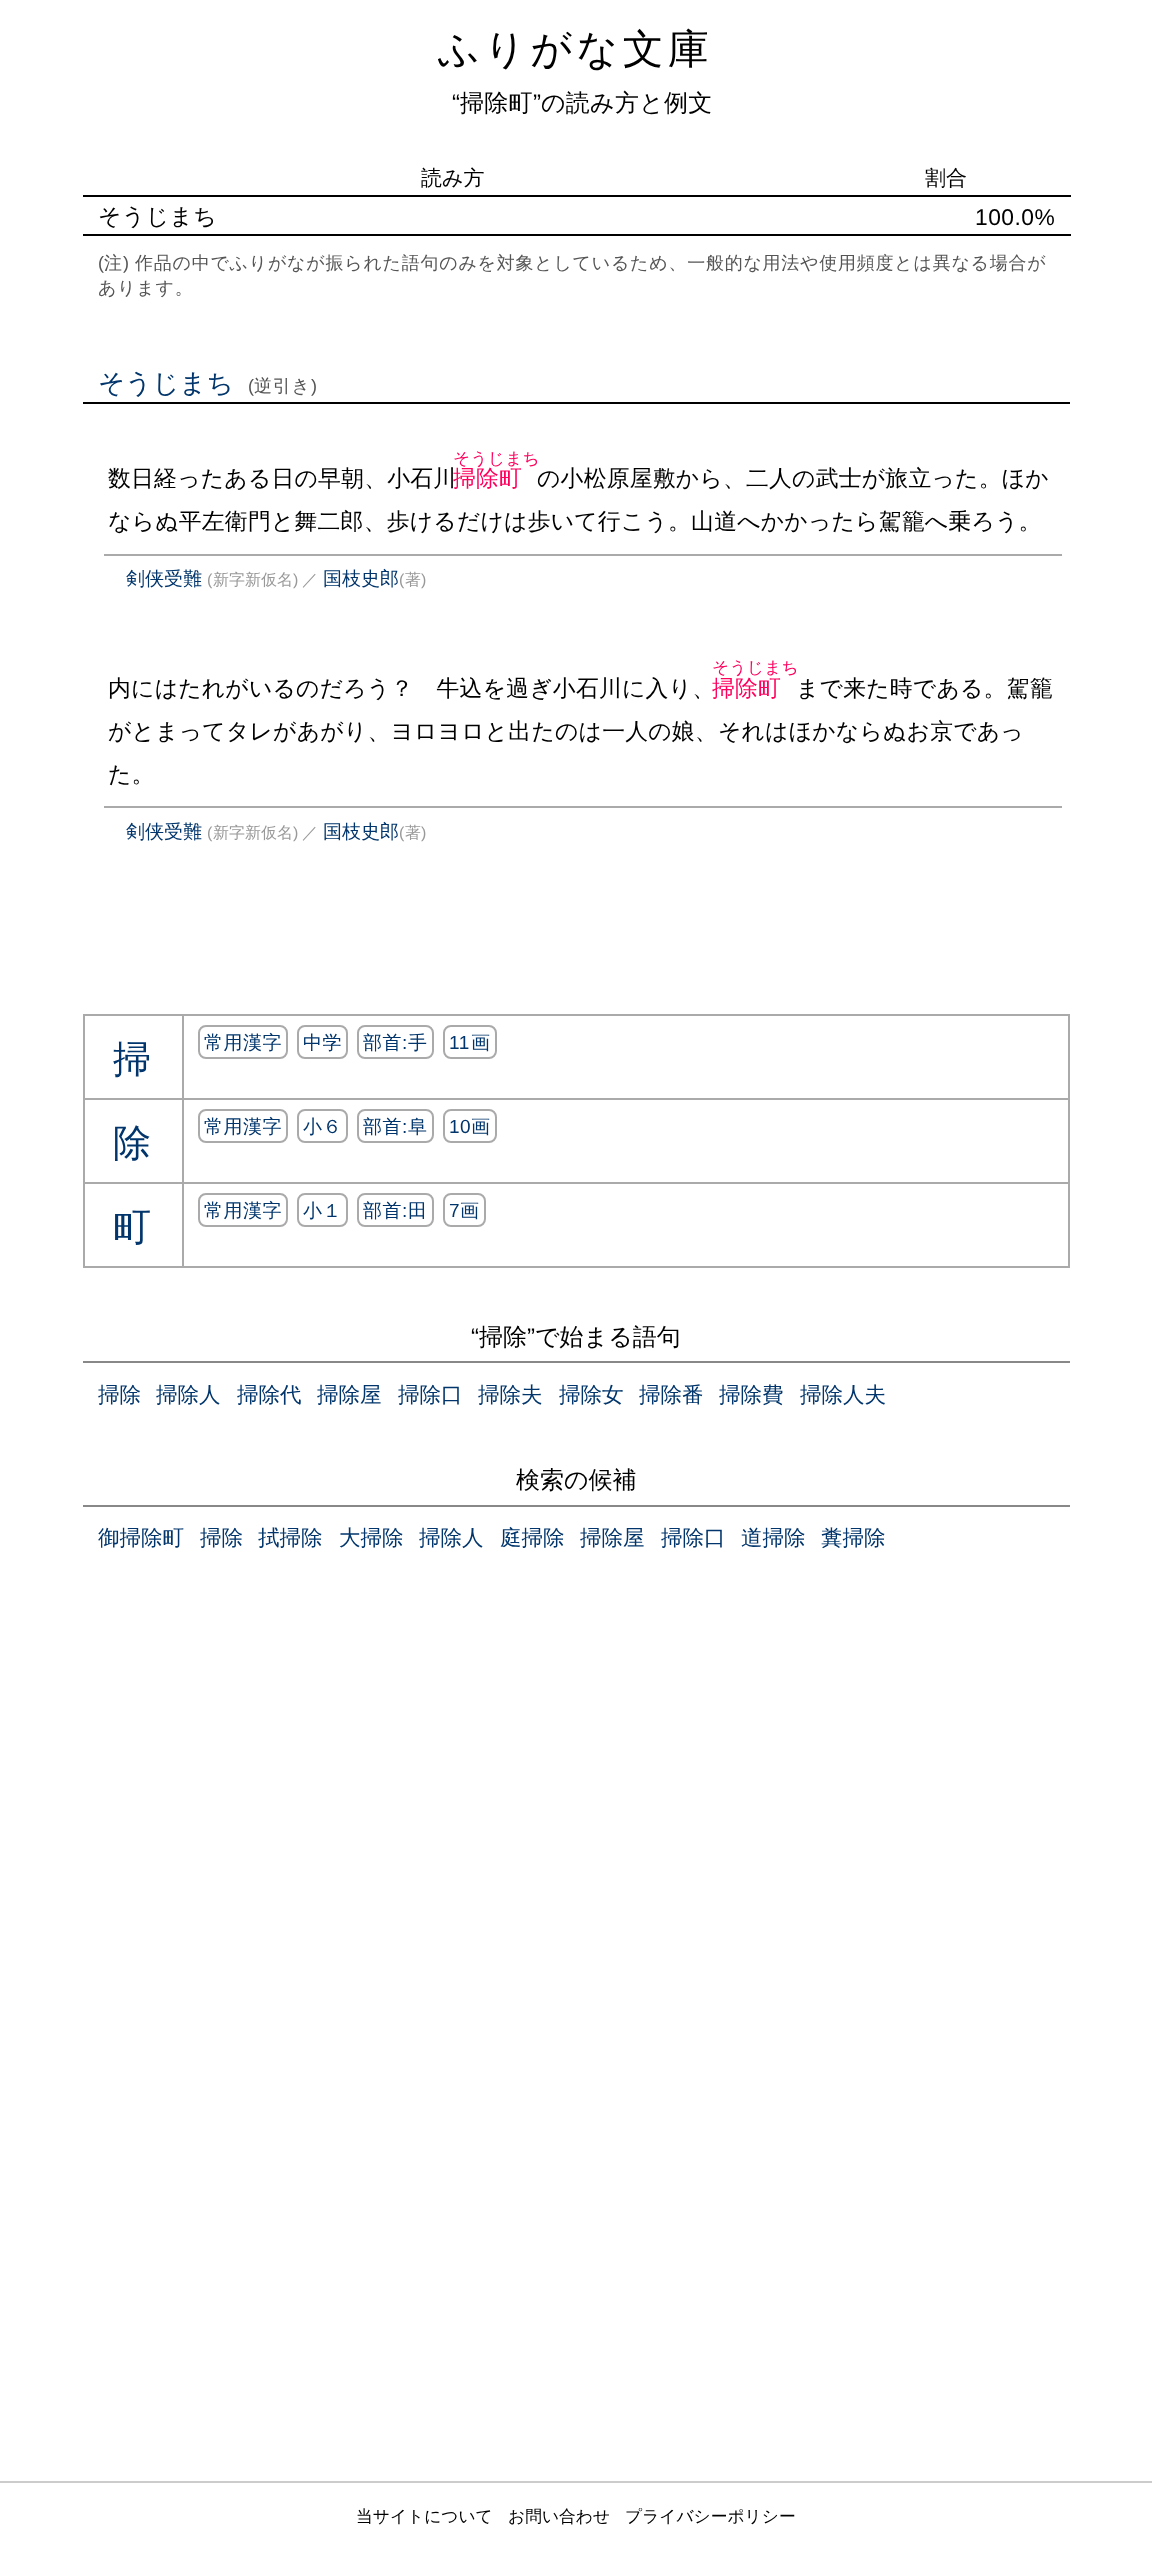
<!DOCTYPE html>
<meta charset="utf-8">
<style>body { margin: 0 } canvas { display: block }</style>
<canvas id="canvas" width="1152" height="2549"></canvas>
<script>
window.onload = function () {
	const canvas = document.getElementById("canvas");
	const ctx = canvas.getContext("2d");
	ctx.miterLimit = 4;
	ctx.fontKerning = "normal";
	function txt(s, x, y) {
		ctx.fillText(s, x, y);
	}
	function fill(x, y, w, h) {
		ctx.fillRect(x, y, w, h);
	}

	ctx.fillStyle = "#FFFFFF";
	fill(0, 0, 1152, 2549);
	ctx.fillStyle = "#000000";
	fill(83, 195, 988, 2);
	fill(83, 234, 988, 2);
	fill(83, 402, 987, 2);
	ctx.fillStyle = "#AAAAAA";
	fill(104, 554, 958, 2);
	fill(104, 806, 958, 2);
	fill(83, 1014, 987, 2);
	fill(83, 1098, 987, 2);
	fill(83, 1182, 987, 2);
	fill(1068, 1182, 2, 86);
	fill(1068, 1098, 2, 86);
	fill(1068, 1014, 2, 86);
	fill(83, 1266, 987, 2);
	fill(83, 1182, 2, 86);
	fill(83, 1098, 2, 86);
	fill(83, 1014, 2, 86);
	ctx.beginPath();
	ctx.roundRect(199, 1026, 88, 32, 7);
	ctx.strokeStyle = "#AAAAAA";
	ctx.lineWidth = 2;
	ctx.stroke();
	ctx.beginPath();
	ctx.roundRect(298, 1026, 49, 32, 7);
	ctx.stroke();
	ctx.beginPath();
	ctx.roundRect(358, 1026, 75, 32, 7);
	ctx.stroke();
	ctx.beginPath();
	ctx.roundRect(444, 1026, 52, 32, 7);
	ctx.stroke();
	ctx.beginPath();
	ctx.roundRect(199, 1110, 88, 32, 7);
	ctx.stroke();
	ctx.beginPath();
	ctx.roundRect(298, 1110, 49, 32, 7);
	ctx.stroke();
	ctx.beginPath();
	ctx.roundRect(358, 1110, 75, 32, 7);
	ctx.stroke();
	ctx.beginPath();
	ctx.roundRect(444, 1110, 52, 32, 7);
	ctx.stroke();
	fill(182, 1014, 2, 254);
	ctx.beginPath();
	ctx.roundRect(199, 1194, 88, 32, 7);
	ctx.stroke();
	ctx.beginPath();
	ctx.roundRect(298, 1194, 49, 32, 7);
	ctx.stroke();
	ctx.beginPath();
	ctx.roundRect(358, 1194, 75, 32, 7);
	ctx.stroke();
	ctx.beginPath();
	ctx.roundRect(444, 1194, 41, 32, 7);
	ctx.stroke();
	ctx.fillStyle = "#888888";
	fill(83, 1361, 987, 2);
	fill(83, 1505, 987, 2);
	ctx.fillStyle = "#CCCCCC";
	fill(0, 2481, 1152, 2);
	ctx.letterSpacing = "4.5px";
	ctx.font = "500 40.75px WenQuanYi Zen Hei";
	ctx.fillStyle = "#000000";
	txt("ふりがな文庫", 438, 63);
	ctx.letterSpacing = "0.25px";
	ctx.font = "24px Liberation Sans";
	txt("“", 452, 111);
	ctx.font = "500 24px WenQuanYi Zen Hei";
	txt("掃除町", 460, 111);
	ctx.font = "24px Liberation Sans";
	txt("”", 533, 111);
	ctx.font = "500 24px WenQuanYi Zen Hei";
	txt("の読み方と例文", 541, 111);
	ctx.letterSpacing = "0px";
	ctx.font = "500 21px WenQuanYi Zen Hei";
	txt("読み方", 421, 185);
	txt("割合", 925, 185);
	ctx.letterSpacing = "0.5px";
	ctx.font = "500 22.8px WenQuanYi Zen Hei";
	txt("そうじまち", 98, 224);
	ctx.font = "22.8px Liberation Sans";
	txt("100.0%", 975, 225);
	ctx.letterSpacing = "0.75px";
	ctx.font = "18px Liberation Sans";
	ctx.fillStyle = "#555555";
	txt("(", 98, 269);
	ctx.font = "500 18px WenQuanYi Zen Hei";
	txt("注", 104, 269);
	ctx.font = "18px Liberation Sans";
	txt(")", 123, 269);
	ctx.font = "500 18px WenQuanYi Zen Hei";
	txt("作品の中でふりがなが振られた語句のみを対象としているため、一般的な用法や使用頻度とは異なる場合が", 135, 269);
	txt("あります。", 98, 294);
	ctx.letterSpacing = "0px";
	ctx.font = "500 26.5px WenQuanYi Zen Hei";
	ctx.fillStyle = "#01356B";
	txt("そうじまち", 98, 392);
	ctx.letterSpacing = "0.75px";
	ctx.font = "18px Liberation Sans";
	ctx.fillStyle = "#555555";
	txt("(", 248, 392);
	ctx.font = "500 18px WenQuanYi Zen Hei";
	txt("逆引き", 254, 392);
	ctx.font = "18px Liberation Sans";
	txt(")", 311, 392);
	ctx.letterSpacing = "0.25px";
	ctx.font = "500 22.8px WenQuanYi Zen Hei";
	ctx.fillStyle = "#000000";
	txt("数日経ったある日の早朝、小石川", 108, 486);
	ctx.font = "500 16.75px WenQuanYi Zen Hei";
	ctx.fillStyle = "#FF005D";
	txt("そうじまち", 453, 464);
	ctx.font = "500 22.8px WenQuanYi Zen Hei";
	txt("掃除町", 453, 486);
	ctx.fillStyle = "#000000";
	txt("の小松原屋敷から、二人の武士が旅立った。ほか", 537, 486);
	txt("ならぬ平左衛門と舞二郎、歩けるだけは歩いて行こう。山道へかかったら駕籠へ乗ろう。", 108, 529);
	ctx.letterSpacing = "0px";
	ctx.font = "500 19px WenQuanYi Zen Hei";
	ctx.fillStyle = "#01356B";
	txt("剣侠受難", 126, 585);
	ctx.font = "16px Liberation Sans";
	ctx.fillStyle = "#999999";
	txt("(", 207, 585);
	ctx.font = "500 16px WenQuanYi Zen Hei";
	txt("新字新仮名", 213, 585);
	ctx.font = "16px Liberation Sans";
	txt(")", 293, 585);
	ctx.font = "500 16px WenQuanYi Zen Hei";
	txt("／", 302, 585);
	ctx.font = "500 19px WenQuanYi Zen Hei";
	ctx.fillStyle = "#01356B";
	txt("国枝史郎", 323, 585);
	ctx.font = "16px Liberation Sans";
	ctx.fillStyle = "#999999";
	txt("(", 399, 585);
	ctx.font = "500 16px WenQuanYi Zen Hei";
	txt("著", 405, 585);
	ctx.font = "16px Liberation Sans";
	txt(")", 421, 585);
	ctx.letterSpacing = "0.25px";
	ctx.font = "500 22.8px WenQuanYi Zen Hei";
	ctx.fillStyle = "#000000";
	txt("内にはたれがいるのだろう？　牛込を過ぎ小石川に入り、", 108, 696);
	ctx.font = "500 16.75px WenQuanYi Zen Hei";
	ctx.fillStyle = "#FF005D";
	txt("そうじまち", 712, 673);
	ctx.font = "500 22.8px WenQuanYi Zen Hei";
	txt("掃除町", 712, 696);
	ctx.fillStyle = "#000000";
	txt("まで来た時である。駕籠", 796, 696);
	txt("がとまってタレがあがり、ヨロヨロと出たのは一人の娘、それはほかならぬお京であっ", 108, 739);
	txt("た。", 108, 782);
	ctx.letterSpacing = "0px";
	ctx.font = "500 19px WenQuanYi Zen Hei";
	ctx.fillStyle = "#01356B";
	txt("剣侠受難", 126, 838);
	ctx.font = "16px Liberation Sans";
	ctx.fillStyle = "#999999";
	txt("(", 207, 838);
	ctx.font = "500 16px WenQuanYi Zen Hei";
	txt("新字新仮名", 213, 838);
	ctx.font = "16px Liberation Sans";
	txt(")", 293, 838);
	ctx.font = "500 16px WenQuanYi Zen Hei";
	txt("／", 302, 838);
	ctx.font = "500 19px WenQuanYi Zen Hei";
	ctx.fillStyle = "#01356B";
	txt("国枝史郎", 323, 838);
	ctx.font = "16px Liberation Sans";
	ctx.fillStyle = "#999999";
	txt("(", 399, 838);
	ctx.font = "500 16px WenQuanYi Zen Hei";
	txt("著", 405, 838);
	ctx.font = "16px Liberation Sans";
	txt(")", 421, 838);
	ctx.letterSpacing = "0.5px";
	ctx.font = "500 38px WenQuanYi Zen Hei";
	ctx.fillStyle = "#01356B";
	txt("掃", 113, 1072);
	ctx.font = "500 19px WenQuanYi Zen Hei";
	txt("常用漢字", 204, 1049);
	txt("中学", 303, 1049);
	txt("部首", 363, 1049);
	ctx.font = "19px Liberation Sans";
	txt(":", 402, 1049);
	ctx.font = "500 19px WenQuanYi Zen Hei";
	txt("⼿", 408, 1049);
	ctx.font = "19px Liberation Sans";
	txt("11", 449, 1049);
	ctx.font = "500 19px WenQuanYi Zen Hei";
	txt("画", 471, 1049);
	ctx.font = "500 38px WenQuanYi Zen Hei";
	txt("除", 113, 1156);
	ctx.font = "500 19px WenQuanYi Zen Hei";
	txt("常用漢字", 204, 1133);
	txt("小６", 303, 1133);
	txt("部首", 363, 1133);
	ctx.font = "19px Liberation Sans";
	txt(":", 402, 1133);
	ctx.font = "500 19px WenQuanYi Zen Hei";
	txt("⾩", 408, 1133);
	ctx.font = "19px Liberation Sans";
	txt("10", 449, 1133);
	ctx.font = "500 19px WenQuanYi Zen Hei";
	txt("画", 471, 1133);
	ctx.font = "500 38px WenQuanYi Zen Hei";
	txt("町", 113, 1240);
	ctx.font = "500 19px WenQuanYi Zen Hei";
	txt("常用漢字", 204, 1217);
	txt("小１", 303, 1217);
	txt("部首", 363, 1217);
	ctx.font = "19px Liberation Sans";
	txt(":", 402, 1217);
	ctx.font = "500 19px WenQuanYi Zen Hei";
	txt("⽥", 408, 1217);
	ctx.font = "19px Liberation Sans";
	txt("7", 449, 1217);
	ctx.font = "500 19px WenQuanYi Zen Hei";
	txt("画", 460, 1217);
	ctx.letterSpacing = "0px";
	ctx.font = "24px Liberation Sans";
	ctx.fillStyle = "#000000";
	txt("“", 471, 1345);
	ctx.font = "500 24px WenQuanYi Zen Hei";
	txt("掃除", 479, 1345);
	ctx.font = "24px Liberation Sans";
	txt("”", 527, 1345);
	ctx.font = "500 24px WenQuanYi Zen Hei";
	txt("で始まる語句", 535, 1345);
	ctx.font = "500 21.5px WenQuanYi Zen Hei";
	ctx.fillStyle = "#01356B";
	txt("掃除", 98, 1402);
	txt("掃除人", 156, 1402);
	txt("掃除代", 237, 1402);
	txt("掃除屋", 317, 1402);
	txt("掃除口", 398, 1402);
	txt("掃除夫", 478, 1402);
	txt("掃除女", 559, 1402);
	txt("掃除番", 639, 1402);
	txt("掃除費", 719, 1402);
	txt("掃除人夫", 800, 1402);
	ctx.font = "500 24px WenQuanYi Zen Hei";
	ctx.fillStyle = "#000000";
	txt("検索の候補", 516, 1488);
	ctx.font = "500 21.5px WenQuanYi Zen Hei";
	ctx.fillStyle = "#01356B";
	txt("御掃除町", 98, 1545);
	txt("掃除", 200, 1545);
	txt("拭掃除", 258, 1545);
	txt("大掃除", 339, 1545);
	txt("掃除人", 419, 1545);
	txt("庭掃除", 500, 1545);
	txt("掃除屋", 580, 1545);
	txt("掃除口", 661, 1545);
	txt("道掃除", 741, 1545);
	txt("糞掃除", 821, 1545);
	ctx.font = "500 16.75px WenQuanYi Zen Hei";
	ctx.fillStyle = "#000000";
	txt("当サイトについて", 356, 2522);
	txt("お問い合わせ", 508, 2522);
	txt("プライバシーポリシー", 625, 2522);
};
</script>
